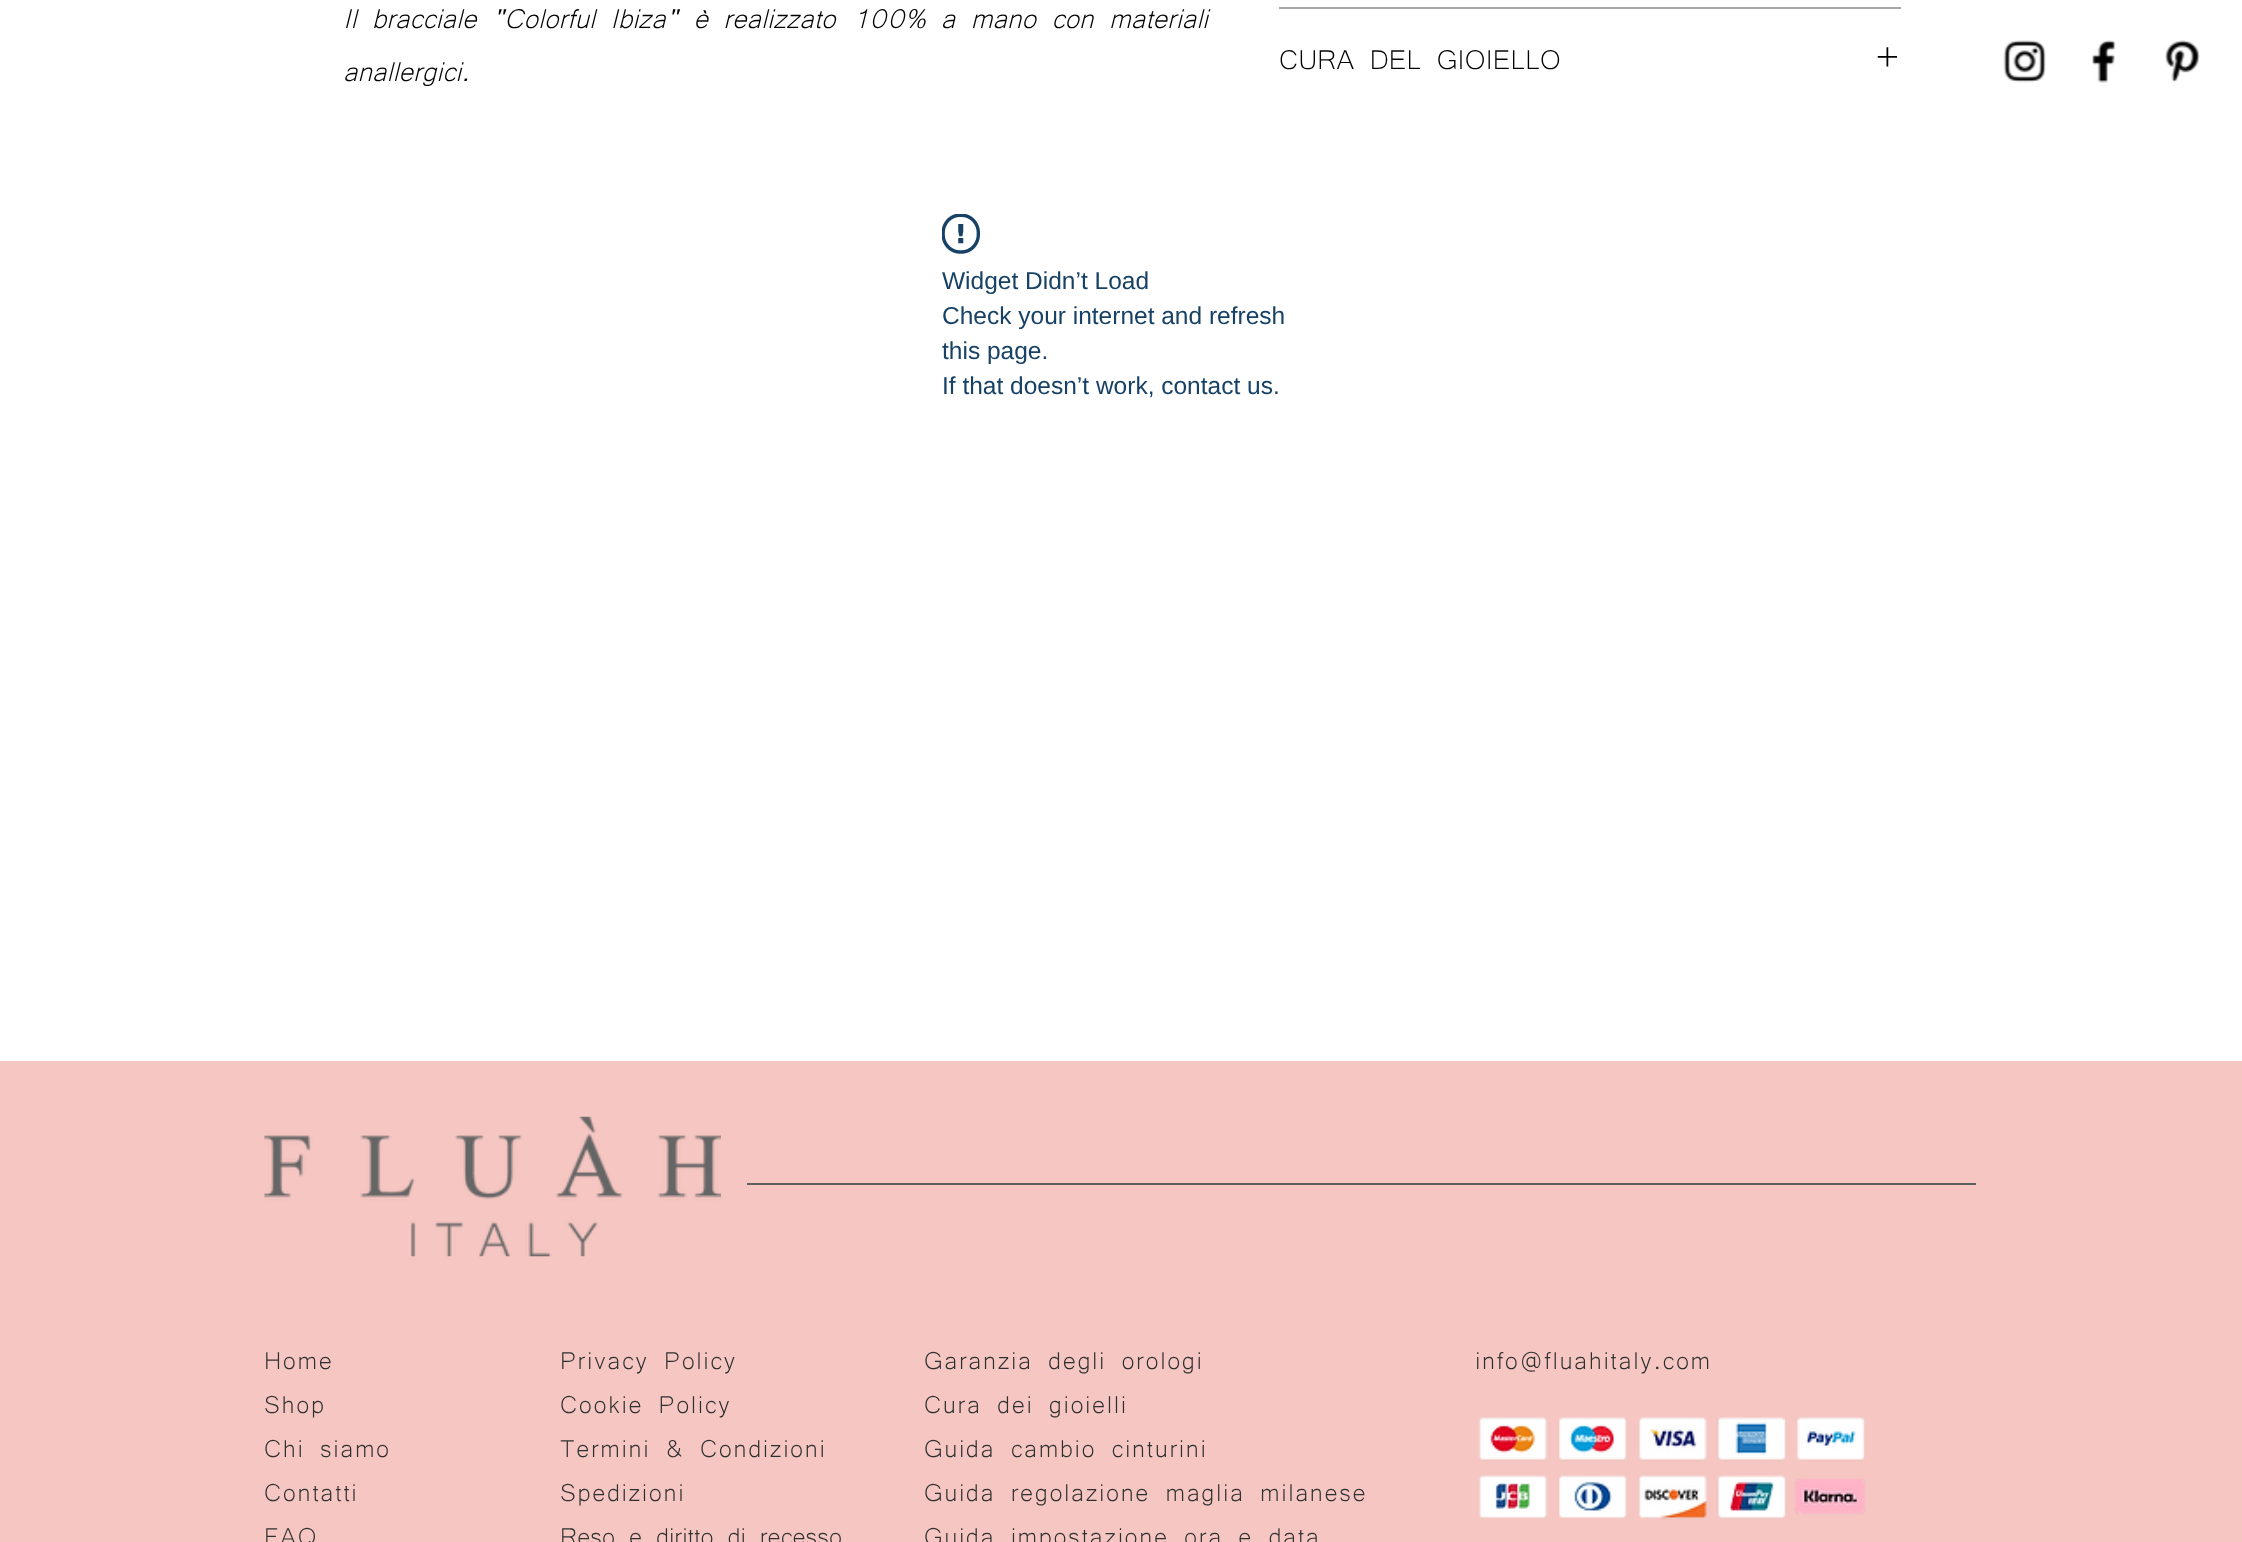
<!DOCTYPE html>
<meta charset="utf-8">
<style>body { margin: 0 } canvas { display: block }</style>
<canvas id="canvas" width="2242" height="1542"></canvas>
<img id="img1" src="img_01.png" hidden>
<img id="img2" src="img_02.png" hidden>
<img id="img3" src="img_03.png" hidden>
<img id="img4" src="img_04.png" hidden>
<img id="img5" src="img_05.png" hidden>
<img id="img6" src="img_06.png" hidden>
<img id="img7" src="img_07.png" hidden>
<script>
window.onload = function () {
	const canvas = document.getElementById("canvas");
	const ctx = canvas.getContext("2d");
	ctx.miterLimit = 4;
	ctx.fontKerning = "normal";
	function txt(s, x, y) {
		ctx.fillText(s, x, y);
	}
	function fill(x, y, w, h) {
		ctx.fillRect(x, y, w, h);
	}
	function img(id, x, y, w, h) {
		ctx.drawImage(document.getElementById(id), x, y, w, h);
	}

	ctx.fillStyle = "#FFFFFF";
	fill(0, 0, 2242, 1542);
	ctx.fillStyle = "#A7A8A7";
	fill(1279, 7, 622, 2);
	img("img1", 1877, 47, 20, 20);
	img("img2", 942, 214, 38, 40);
	img("img3", 2003, 40, 43, 43);
	img("img4", 2092, 40, 24, 43);
	img("img5", 2165, 40, 35, 43);
	ctx.fillStyle = "#F5C6C2";
	fill(0, 1061, 2242, 481);
	img("img6", 264, 1116, 457, 141);
	ctx.fillStyle = "#5C5F5E";
	fill(747, 1183, 1229, 2);
	img("img7", 1478, 1417, 388, 103);
	ctx.font = "italic 35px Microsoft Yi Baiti";
	ctx.fillStyle = "#000000";
	txt("Il bracciale \"Colorful Ibiza\" è realizzato 100% a mano con materiali", 343, 28);
	txt("anallergici.", 343, 81);
	ctx.font = "35px Microsoft Yi Baiti";
	txt("CURA DEL GIOIELLO", 1279, 69);
	ctx.font = "24.5px Liberation Sans";
	ctx.fillStyle = "#174165";
	txt("Widget Didn’t Load", 942, 289);
	txt("Check your internet and refresh", 942, 324);
	txt("this page.", 942, 359);
	txt("If that doesn’t work, contact us.", 942, 394);
	ctx.letterSpacing = "1.6px";
	ctx.font = "31.5px Microsoft Yi Baiti";
	ctx.fillStyle = "#2E302F";
	txt("Home", 264, 1369);
	txt("Shop", 264, 1413);
	txt("Chi siamo", 264, 1457);
	txt("Contatti", 264, 1501);
	txt("FAQ", 264, 1545);
	txt("Privacy Policy", 560, 1369);
	txt("Cookie Policy", 560, 1413);
	txt("Termini & Condizioni", 560, 1457);
	txt("Spedizioni", 560, 1501);
	ctx.letterSpacing = "0px";
	txt("Reso e diritto di recesso", 560, 1545);
	ctx.letterSpacing = "1.6px";
	txt("Garanzia degli orologi", 924, 1369);
	txt("Cura dei gioielli", 924, 1413);
	txt("Guida cambio cinturini", 924, 1457);
	txt("Guida regolazione maglia milanese", 924, 1501);
	txt("Guida impostazione ora e data", 924, 1545);
	txt("info@fluahitaly.com", 1475, 1369);
};
</script>
